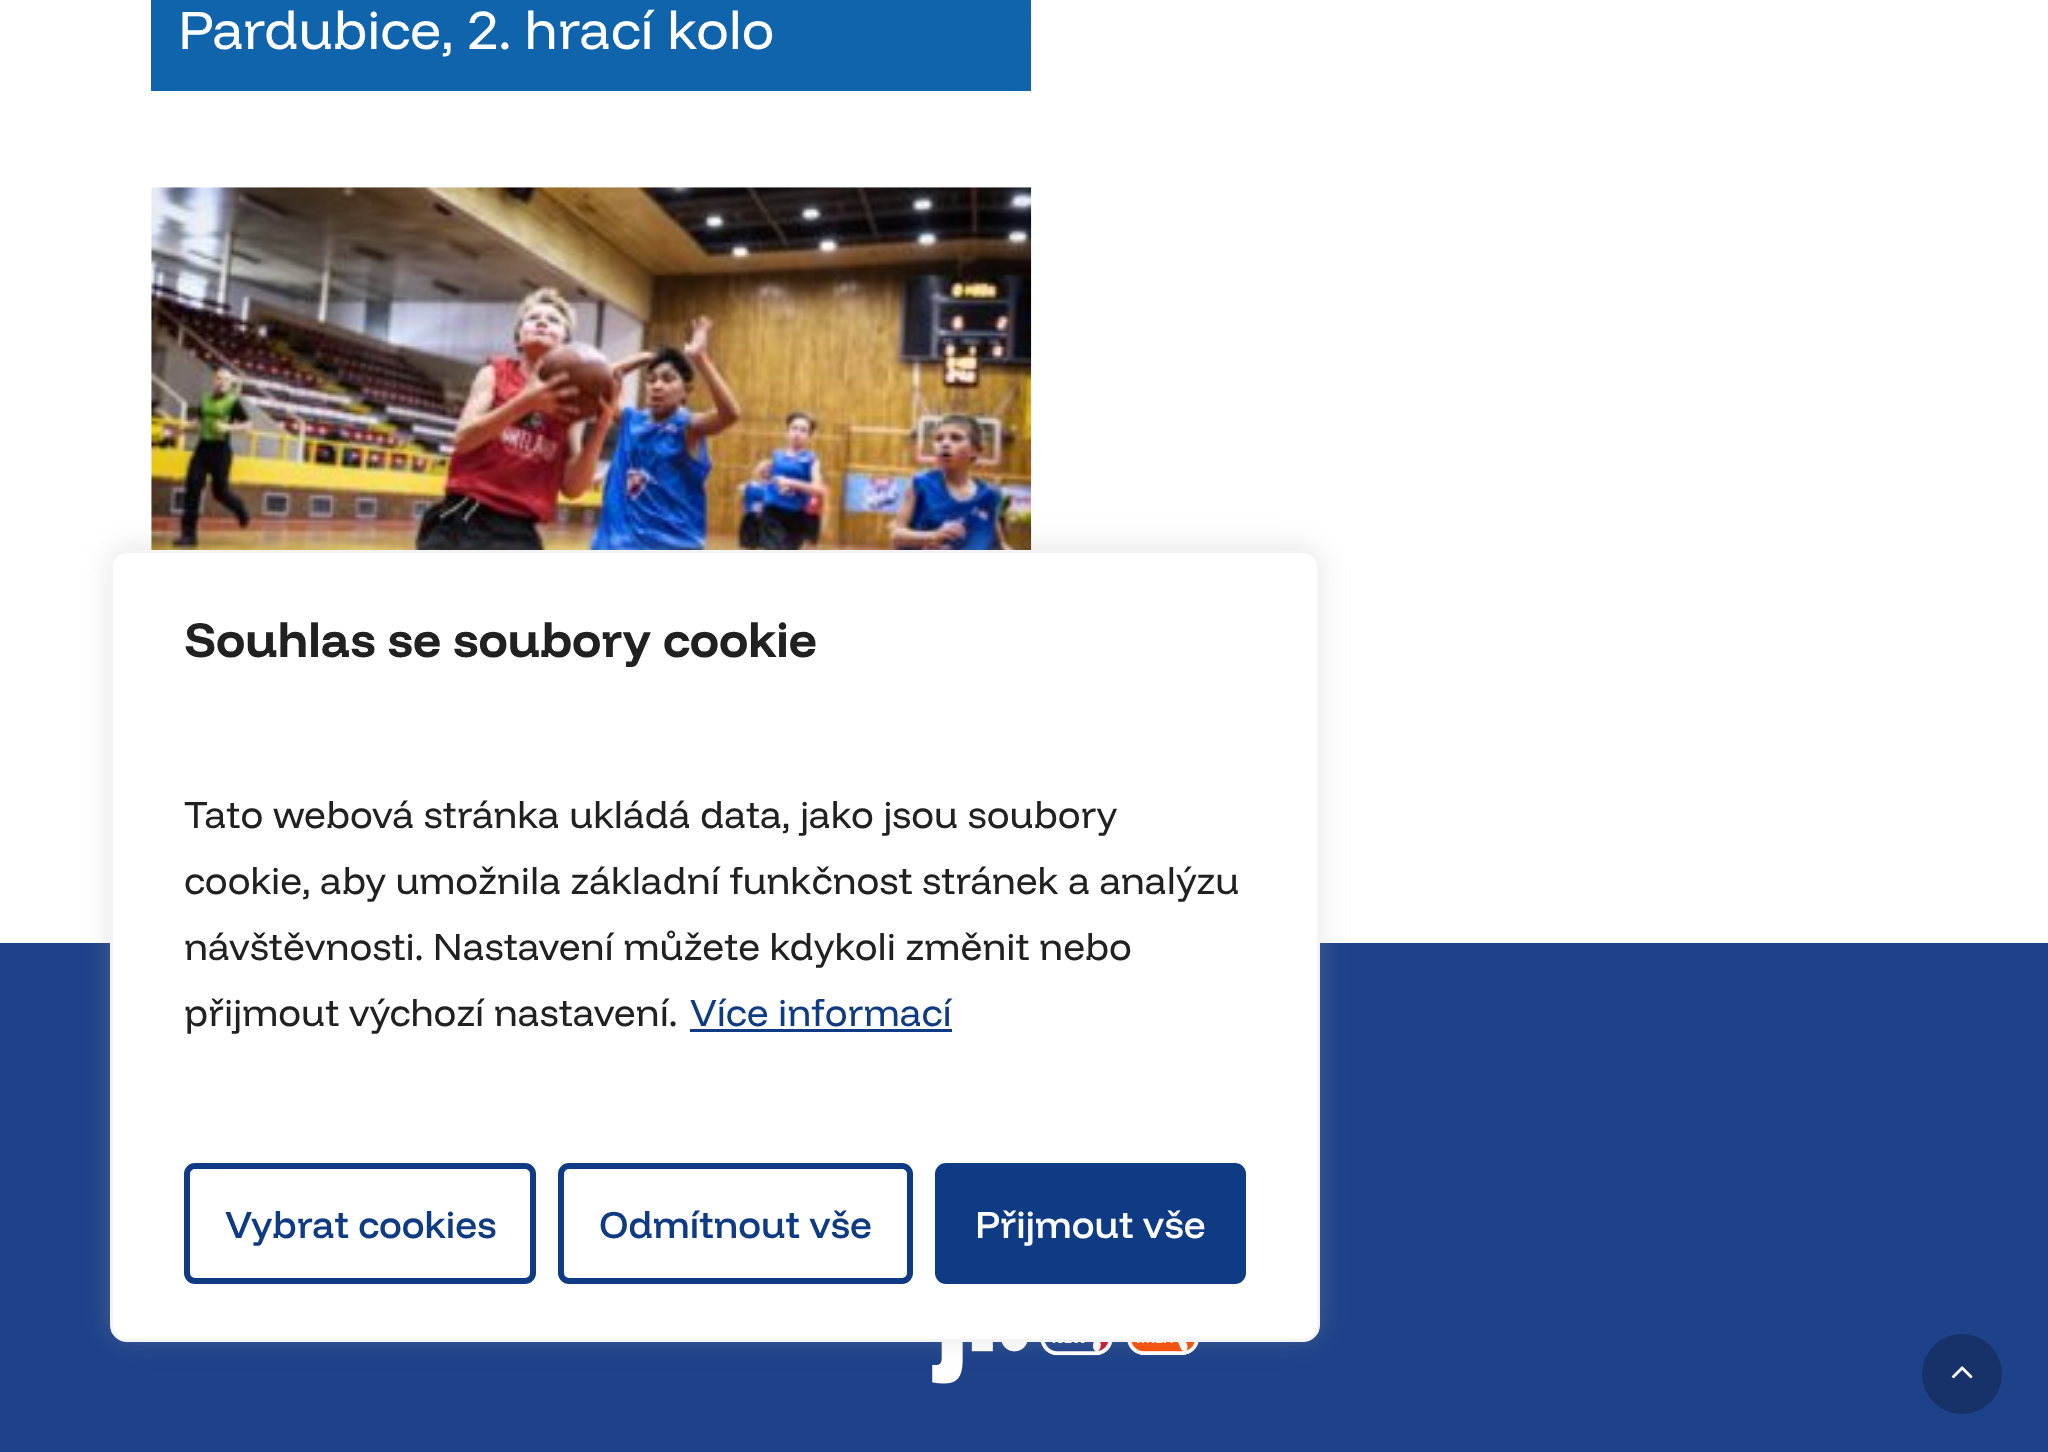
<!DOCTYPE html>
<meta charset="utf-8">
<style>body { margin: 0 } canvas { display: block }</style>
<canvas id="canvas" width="2048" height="1452"></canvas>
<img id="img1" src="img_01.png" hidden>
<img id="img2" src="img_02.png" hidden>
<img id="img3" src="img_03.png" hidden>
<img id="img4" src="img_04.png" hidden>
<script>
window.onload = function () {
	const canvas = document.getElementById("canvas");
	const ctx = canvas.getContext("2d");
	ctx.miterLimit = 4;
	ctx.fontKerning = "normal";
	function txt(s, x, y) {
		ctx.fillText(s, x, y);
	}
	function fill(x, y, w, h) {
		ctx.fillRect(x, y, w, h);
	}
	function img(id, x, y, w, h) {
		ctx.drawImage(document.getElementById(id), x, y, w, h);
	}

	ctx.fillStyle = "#FFFFFF";
	fill(0, 0, 2048, 1452);
	ctx.fillStyle = "#0F64AB";
	fill(151, 0, 880, 91);
	img("img1", 1031, 0, 1, 91);
	img("img2", 151, 187, 881, 363);
	ctx.fillStyle = "#1D428A";
	fill(0, 943, 2048, 509);
	img("img3", 932, 1342, 267, 42);
	ctx.fillStyle = "rgba(172, 171, 171, 0.3)";
	ctx.filter = "blur(14px)";
	ctx.beginPath();
	ctx.roundRect(110, 547, 1210, 792, 17);
	ctx.fill();
	ctx.filter = "none";
	ctx.fillStyle = "#FFFFFF";
	ctx.beginPath();
	ctx.roundRect(111.5, 551.5, 1207, 789, 15.5);
	ctx.fill();
	ctx.strokeStyle = "#F4F4F4";
	ctx.lineWidth = 3;
	ctx.stroke();
	ctx.fillStyle = "#0E3B83";
	fill(690, 1029, 262, 3);
	ctx.beginPath();
	ctx.roundRect(187, 1166, 346, 115, 8);
	ctx.strokeStyle = "#0E3B83";
	ctx.lineWidth = 6;
	ctx.stroke();
	ctx.beginPath();
	ctx.roundRect(561, 1166, 349, 115, 8);
	ctx.stroke();
	ctx.beginPath();
	ctx.roundRect(938, 1166, 305, 115, 8);
	ctx.fill();
	ctx.stroke();
	ctx.fillStyle = "#163268";
	ctx.beginPath();
	ctx.arc(1962, 1374, 40, 0, Math.PI * 2);
	ctx.fill();
	img("img4", 1951, 1366, 22, 13);
	ctx.font = "55px Funnel Display";
	ctx.fillStyle = "#FFFFFF";
	txt("Pardubice, 2. hrací kolo", 178, 49);
	ctx.font = "bold 49.5px Funnel Display";
	ctx.fillStyle = "#212121";
	txt("Souhlas se soubory cookie", 184, 657);
	ctx.font = "38.5px Funnel Display";
	txt("Tato webová stránka ukládá data, jako jsou soubory", 184, 828);
	txt("cookie, aby umožnila základní funkčnost stránek a analýzu", 184, 894);
	txt("návštěvnosti. Nastavení můžete kdykoli změnit nebo", 184, 960);
	txt("přijmout výchozí nastavení.", 184, 1026);
	ctx.fillStyle = "#0E3B83";
	txt("Více informací", 690, 1026);
	ctx.font = "500 38.5px Funnel Display";
	txt("Vybrat cookies", 225, 1238);
	txt("Odmítnout vše", 599, 1238);
	ctx.fillStyle = "#FFFFFF";
	txt("Přijmout vše", 975, 1238);
};
</script>
